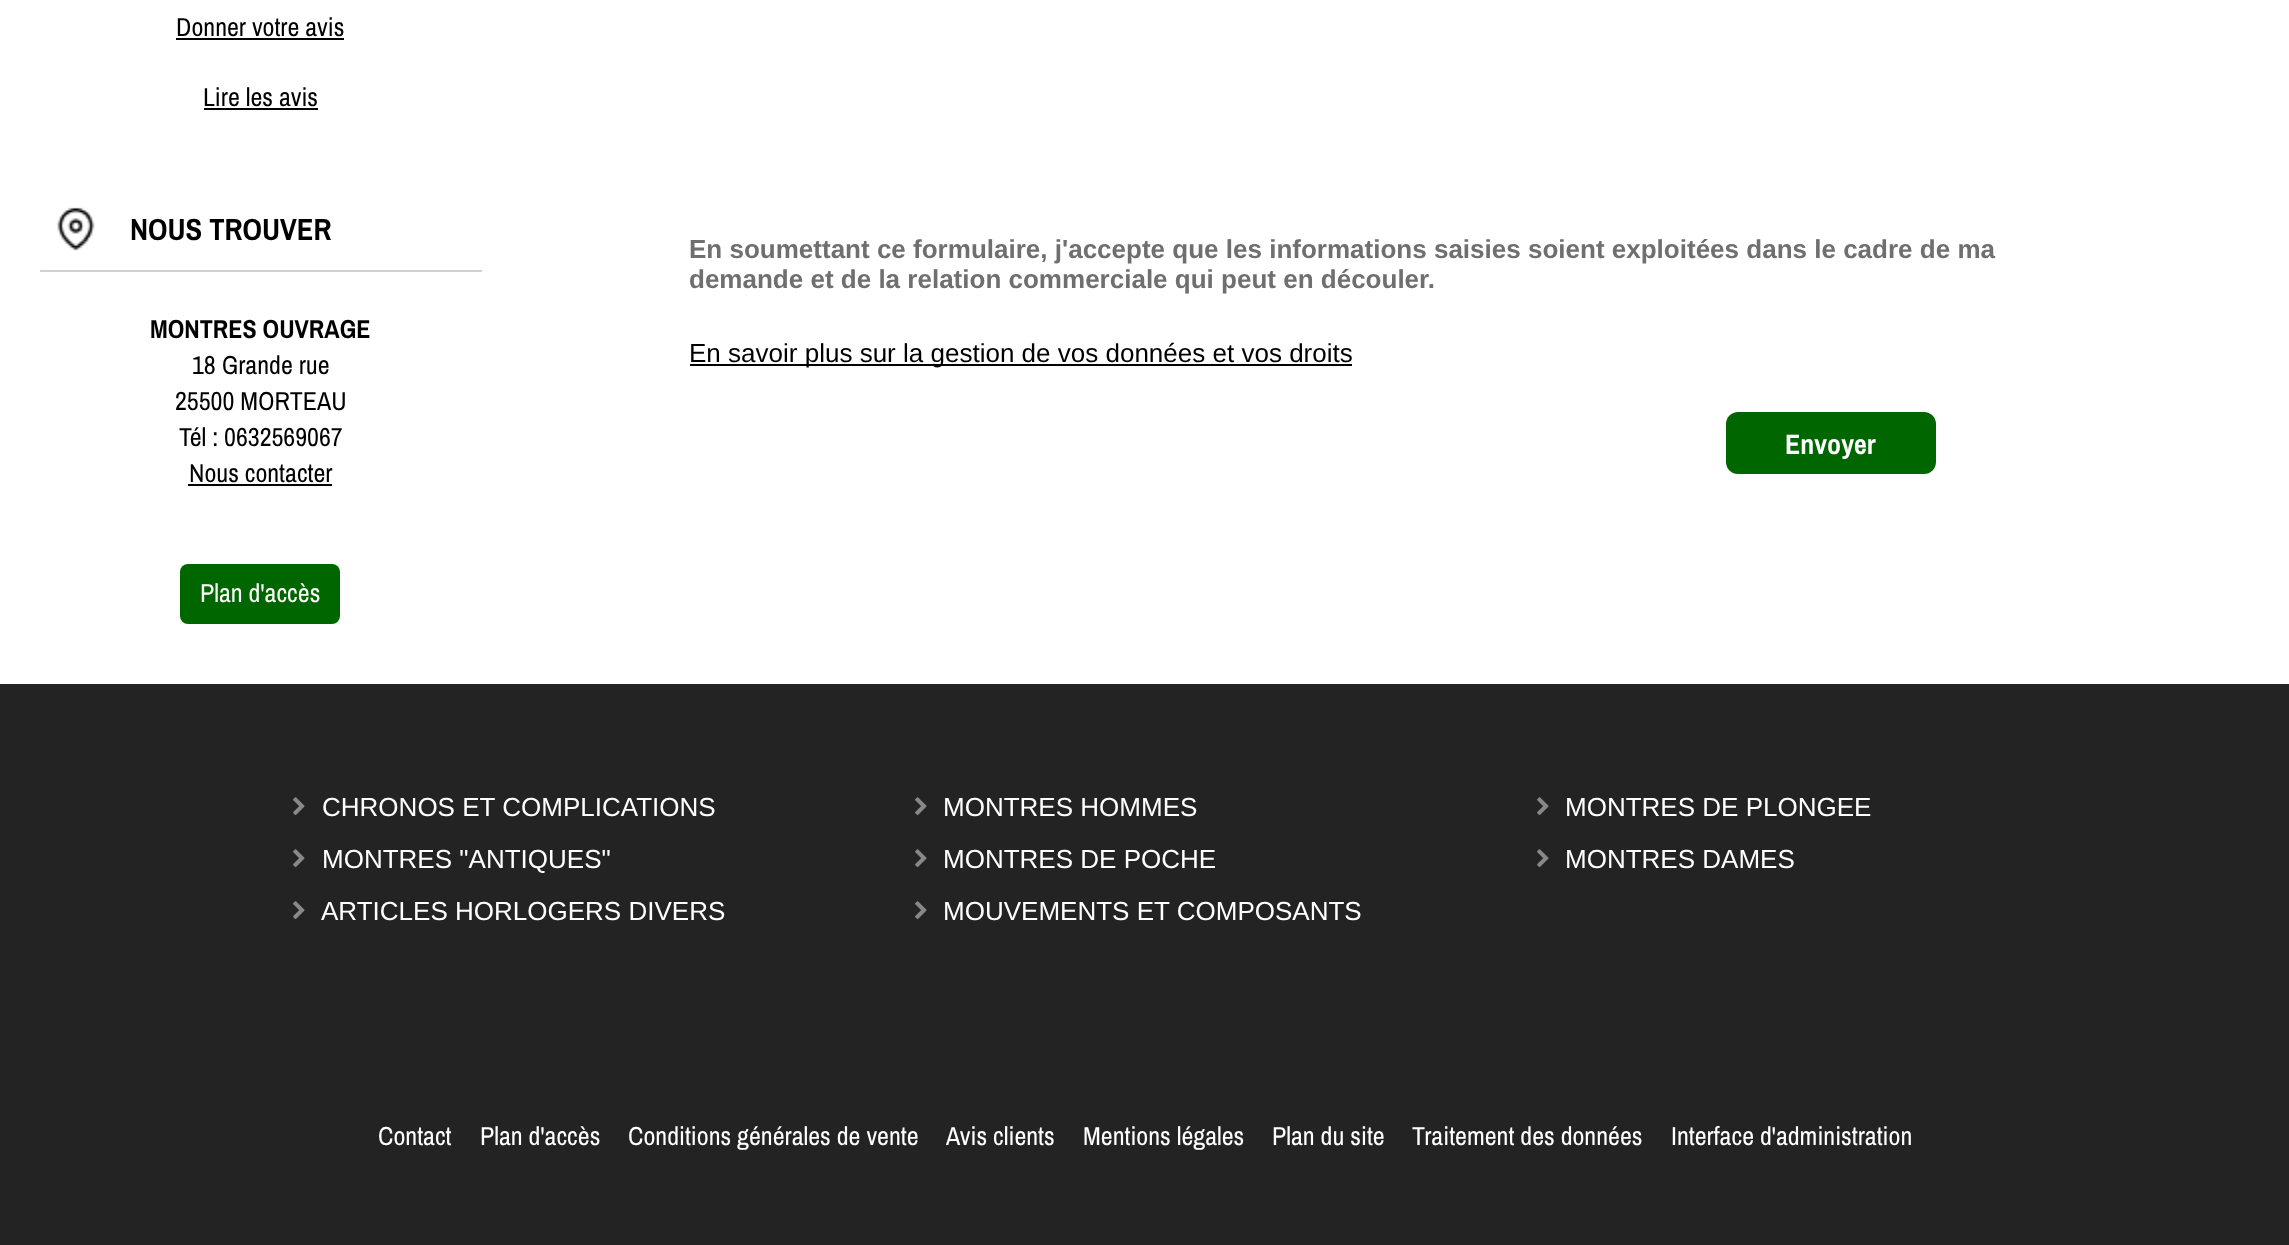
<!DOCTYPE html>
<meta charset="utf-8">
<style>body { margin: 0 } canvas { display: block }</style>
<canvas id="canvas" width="2289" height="1245"></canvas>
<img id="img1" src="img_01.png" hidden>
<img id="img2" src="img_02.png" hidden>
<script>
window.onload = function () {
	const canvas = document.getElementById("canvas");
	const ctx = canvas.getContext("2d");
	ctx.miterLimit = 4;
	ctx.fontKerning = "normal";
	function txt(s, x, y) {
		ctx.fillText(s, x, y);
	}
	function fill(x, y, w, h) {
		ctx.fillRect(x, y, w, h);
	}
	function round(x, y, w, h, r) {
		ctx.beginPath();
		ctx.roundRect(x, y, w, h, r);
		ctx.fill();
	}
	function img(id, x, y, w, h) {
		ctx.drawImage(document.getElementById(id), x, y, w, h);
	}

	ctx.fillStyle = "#232323";
	fill(0, 0, 2289, 1245);
	ctx.fillStyle = "#FFFFFF";
	fill(0, 0, 2289, 684);
	ctx.fillStyle = "#000000";
	fill(176, 38, 168, 2);
	fill(204, 108, 114, 2);
	ctx.fillStyle = "#CAD2D3";
	fill(40, 270, 442, 2);
	img("img1", 57, 207, 38, 44);
	ctx.fillStyle = "#000000";
	fill(188, 484, 144, 2);
	ctx.fillStyle = "#006600";
	round(180, 564, 160, 60, 8);
	ctx.fillStyle = "#000000";
	fill(690, 364, 662, 2);
	ctx.fillStyle = "#006600";
	round(1726, 412, 210, 62, 12);
	img("img2", 293, 797, 12, 19);
	img("img2", 915, 797, 12, 19);
	img("img2", 1537, 797, 12, 19);
	img("img2", 293, 849, 12, 19);
	img("img2", 915, 849, 12, 19);
	img("img2", 1537, 849, 12, 19);
	img("img2", 293, 901, 12, 19);
	img("img2", 915, 901, 12, 19);
	ctx.font = "26.02px Archivo Narrow";
	ctx.fillStyle = "#000000";
	txt("Donner votre avis", 176, 36);
	txt("Lire les avis", 203, 106);
	ctx.font = "bold 30.5px Archivo Narrow";
	txt("NOUS TROUVER", 130, 240);
	ctx.font = "bold 26.02px Archivo Narrow";
	txt("MONTRES OUVRAGE", 150, 338);
	ctx.font = "26.02px Archivo Narrow";
	txt("18 Grande rue", 192, 374);
	txt("25500 MORTEAU", 175, 410);
	txt("Tél : 0632569067", 179, 446);
	txt("Nous contacter", 189, 482);
	ctx.fillStyle = "#FFFFFF";
	txt("Plan d'accès", 200, 602);
	ctx.font = "bold 26.02px Liberation Sans";
	ctx.fillStyle = "#6F6F6F";
	txt("En soumettant ce formulaire, j'accepte que les informations saisies soient exploitées dans le cadre de ma", 689, 258);
	txt("demande et de la relation commerciale qui peut en découler.", 689, 288);
	ctx.font = "26.02px Liberation Sans";
	ctx.fillStyle = "#000000";
	txt("En savoir plus sur la gestion de vos données et vos droits", 689, 362);
	ctx.font = "bold 28px Archivo Narrow";
	ctx.fillStyle = "#FFFFFF";
	txt("Envoyer", 1785, 454);
	ctx.font = "26.02px Liberation Sans";
	txt("CHRONOS ET COMPLICATIONS", 322, 816);
	txt("MONTRES HOMMES", 943, 816);
	txt("MONTRES DE PLONGEE", 1565, 816);
	txt("MONTRES \"ANTIQUES\"", 322, 868);
	txt("MONTRES DE POCHE", 943, 868);
	txt("MONTRES DAMES", 1565, 868);
	txt("ARTICLES HORLOGERS DIVERS", 321, 920);
	txt("MOUVEMENTS ET COMPOSANTS", 943, 920);
	ctx.font = "26.02px Archivo Narrow";
	txt("Contact", 378, 1145);
	txt("Plan d'accès", 480, 1145);
	txt("Conditions générales de vente", 628, 1145);
	txt("Avis clients", 946, 1145);
	txt("Mentions légales", 1083, 1145);
	txt("Plan du site", 1272, 1145);
	txt("Traitement des données", 1412, 1145);
	txt("Interface d'administration", 1671, 1145);
};
</script>
